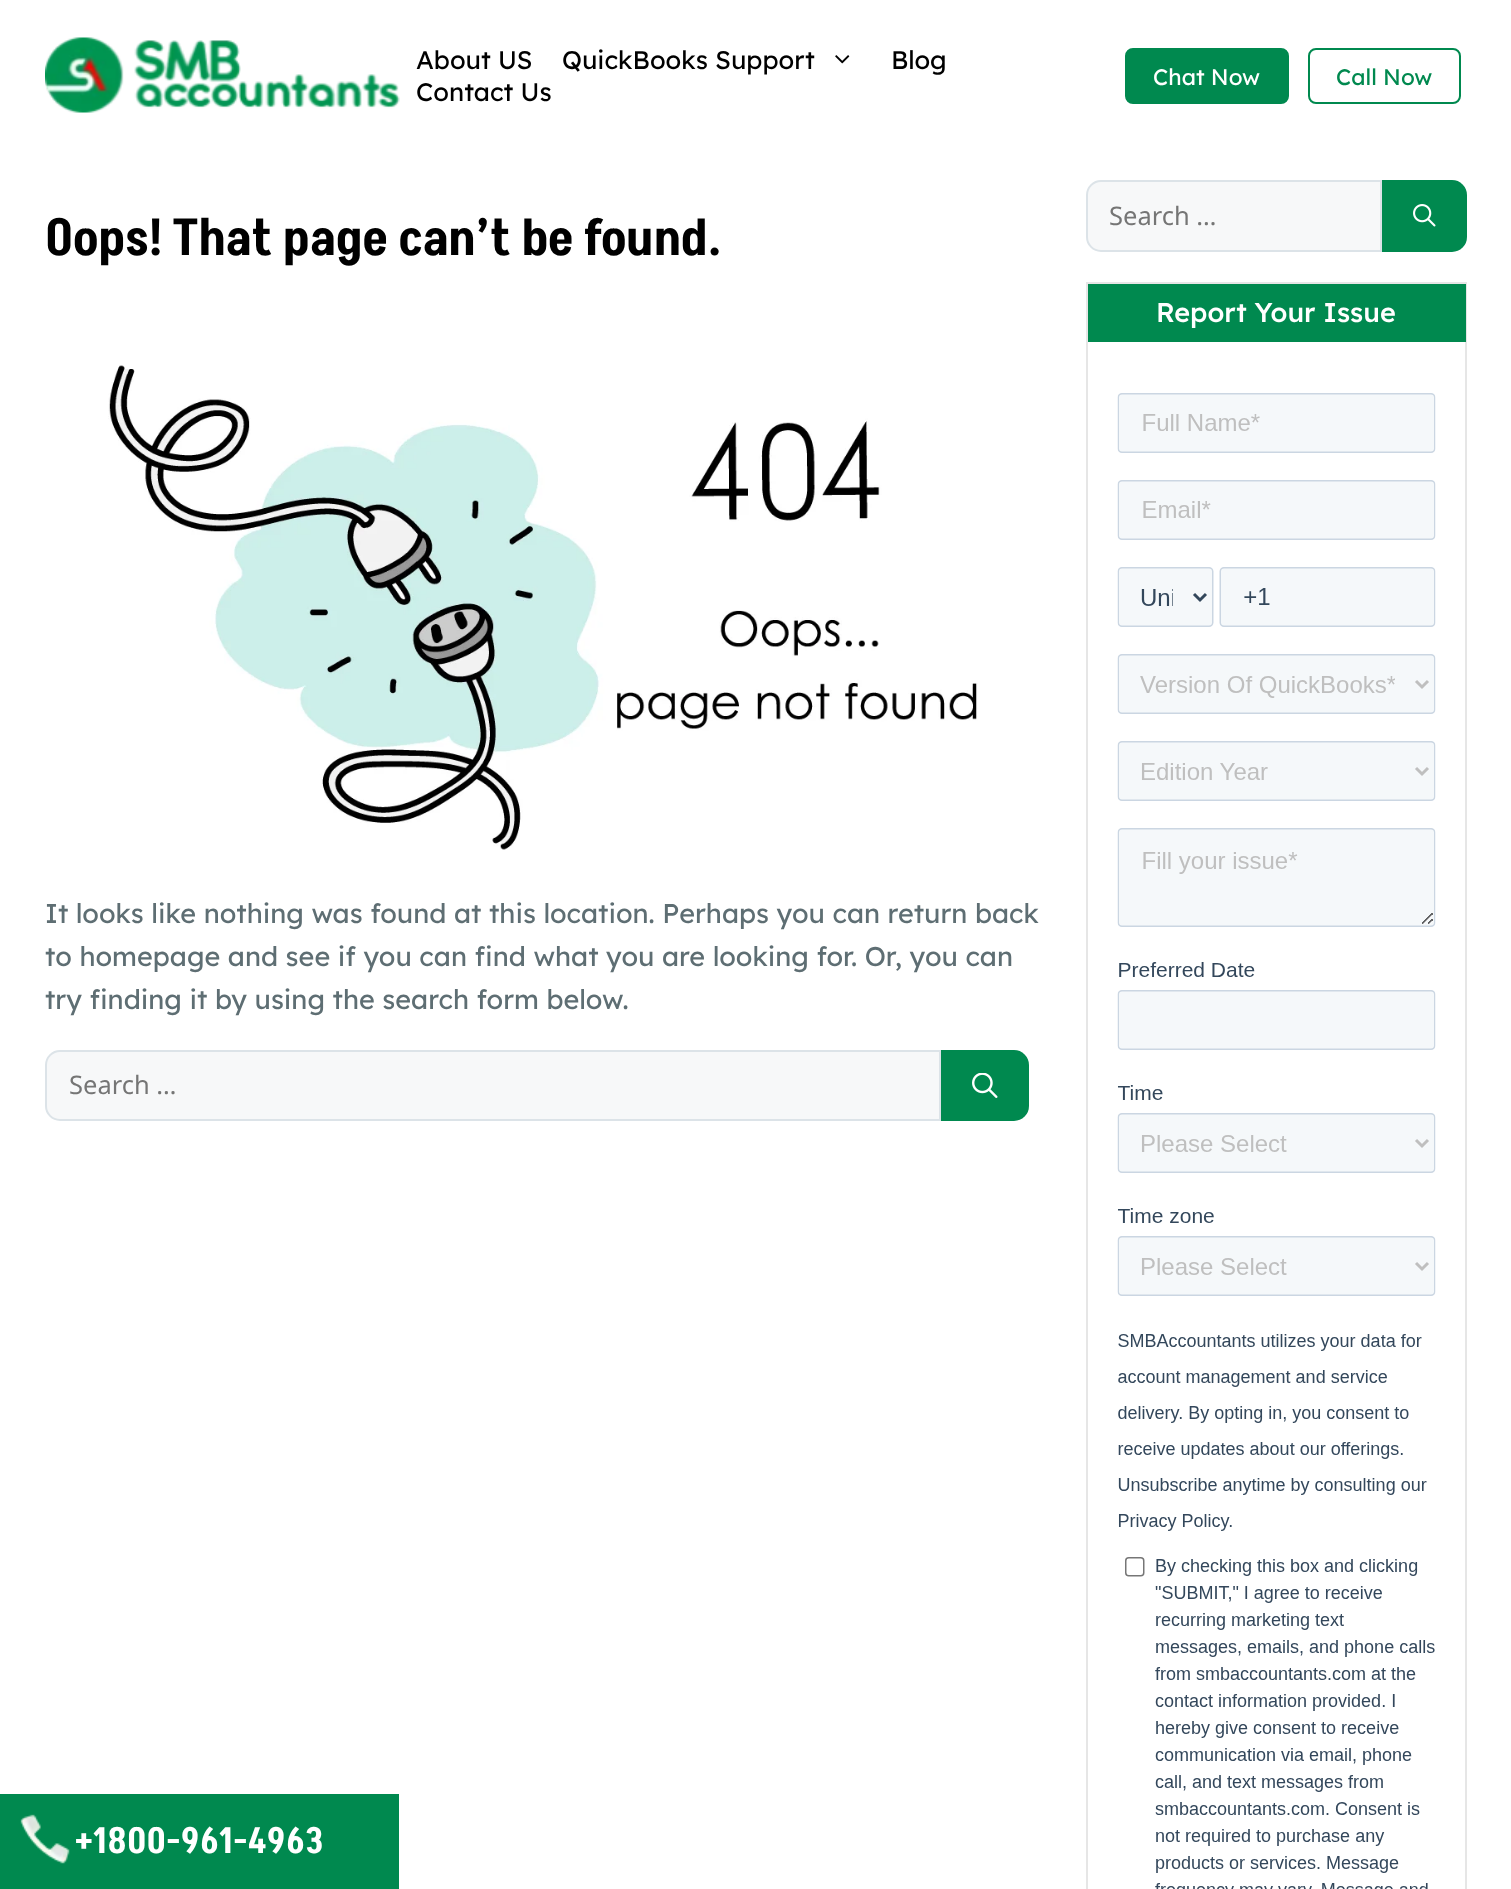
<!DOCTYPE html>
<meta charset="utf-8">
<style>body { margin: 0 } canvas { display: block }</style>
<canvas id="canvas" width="1511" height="1889"></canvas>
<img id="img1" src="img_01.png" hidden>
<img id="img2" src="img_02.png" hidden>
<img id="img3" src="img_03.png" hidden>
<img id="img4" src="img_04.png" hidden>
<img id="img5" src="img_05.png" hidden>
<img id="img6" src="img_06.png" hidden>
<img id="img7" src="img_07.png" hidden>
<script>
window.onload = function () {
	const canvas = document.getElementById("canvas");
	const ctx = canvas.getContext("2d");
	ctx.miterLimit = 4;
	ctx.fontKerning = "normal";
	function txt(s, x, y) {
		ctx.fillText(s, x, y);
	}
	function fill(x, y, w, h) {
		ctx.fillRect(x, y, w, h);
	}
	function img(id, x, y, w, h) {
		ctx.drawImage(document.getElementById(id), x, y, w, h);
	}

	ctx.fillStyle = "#FFFFFF";
	fill(0, 0, 1511, 1889);
	img("img1", 45, 37, 355, 76);
	img("img2", 835, 55, 15, 9);
	ctx.fillStyle = "#00894F";
	ctx.beginPath();
	ctx.roundRect(1126, 49, 162, 54, 7);
	ctx.fill();
	ctx.strokeStyle = "#00894F";
	ctx.lineWidth = 2;
	ctx.stroke();
	ctx.beginPath();
	ctx.roundRect(1309, 49, 151, 54, 7);
	ctx.stroke();
	img("img3", 108, 365, 870, 485);
	ctx.fillStyle = "#F7F8F9";
	ctx.beginPath();
	ctx.roundRect(46, 1051, 894, 69, [14, 0, 0, 14]);
	ctx.fill();
	ctx.strokeStyle = "#DCE3E8";
	ctx.stroke();
	ctx.fillStyle = "#00894F";
	ctx.beginPath();
	ctx.roundRect(941, 1050, 88, 71, [0, 15, 15, 0]);
	ctx.fill();
	img("img4", 972, 1073, 26, 25);
	ctx.fillStyle = "#F7F8F9";
	ctx.beginPath();
	ctx.roundRect(1087, 181, 294, 70, [14, 0, 0, 14]);
	ctx.fill();
	ctx.stroke();
	ctx.fillStyle = "#00894F";
	ctx.beginPath();
	ctx.roundRect(1382, 180, 85, 72, [0, 15, 15, 0]);
	ctx.fill();
	img("img5", 1413, 204, 23, 23);
	ctx.strokeStyle = "#E6E6E6";
	ctx.strokeRect(1087, 283, 379, 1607);
	fill(1088, 284, 378, 58);
	img("img6", 1117, 393, 319, 1496);
	fill(0, 1794, 399, 95);
	img("img7", 20, 1814, 50, 50);
	ctx.font = "25.5px Lexend Deca";
	ctx.fillStyle = "#000000";
	txt("About US", 416, 69);
	txt("QuickBooks Support", 562, 69);
	txt("Blog", 891, 69);
	txt("Contact Us", 416, 101);
	ctx.font = "22.5px Lexend Deca";
	ctx.fillStyle = "#FFFFFF";
	txt("Chat Now", 1153, 85);
	ctx.fillStyle = "#00894F";
	txt("Call Now", 1336, 85);
	ctx.font = "600 51px Akshar";
	ctx.fillStyle = "#000000";
	txt("Oops! That page can’t be found.", 45, 255);
	ctx.font = "27px Lexend Deca";
	ctx.fillStyle = "#5E6E73";
	txt("It looks like nothing was found at this location. Perhaps you can return back", 45, 923);
	txt("to homepage and see if you can find what you are looking for. Or, you can", 45, 966);
	txt("try finding it by using the search form below.", 45, 1009);
	ctx.font = "25.5px Noto Sans";
	ctx.fillStyle = "#757575";
	txt("Search …", 69, 1094);
	txt("Search …", 1109, 225);
	ctx.font = "500 27px Lexend Deca";
	ctx.fillStyle = "#FFFFFF";
	txt("Report Your Issue", 1156, 322);
	ctx.font = "600 36px Akshar";
	txt("+1800-961-4963", 75, 1853);
};
</script>
